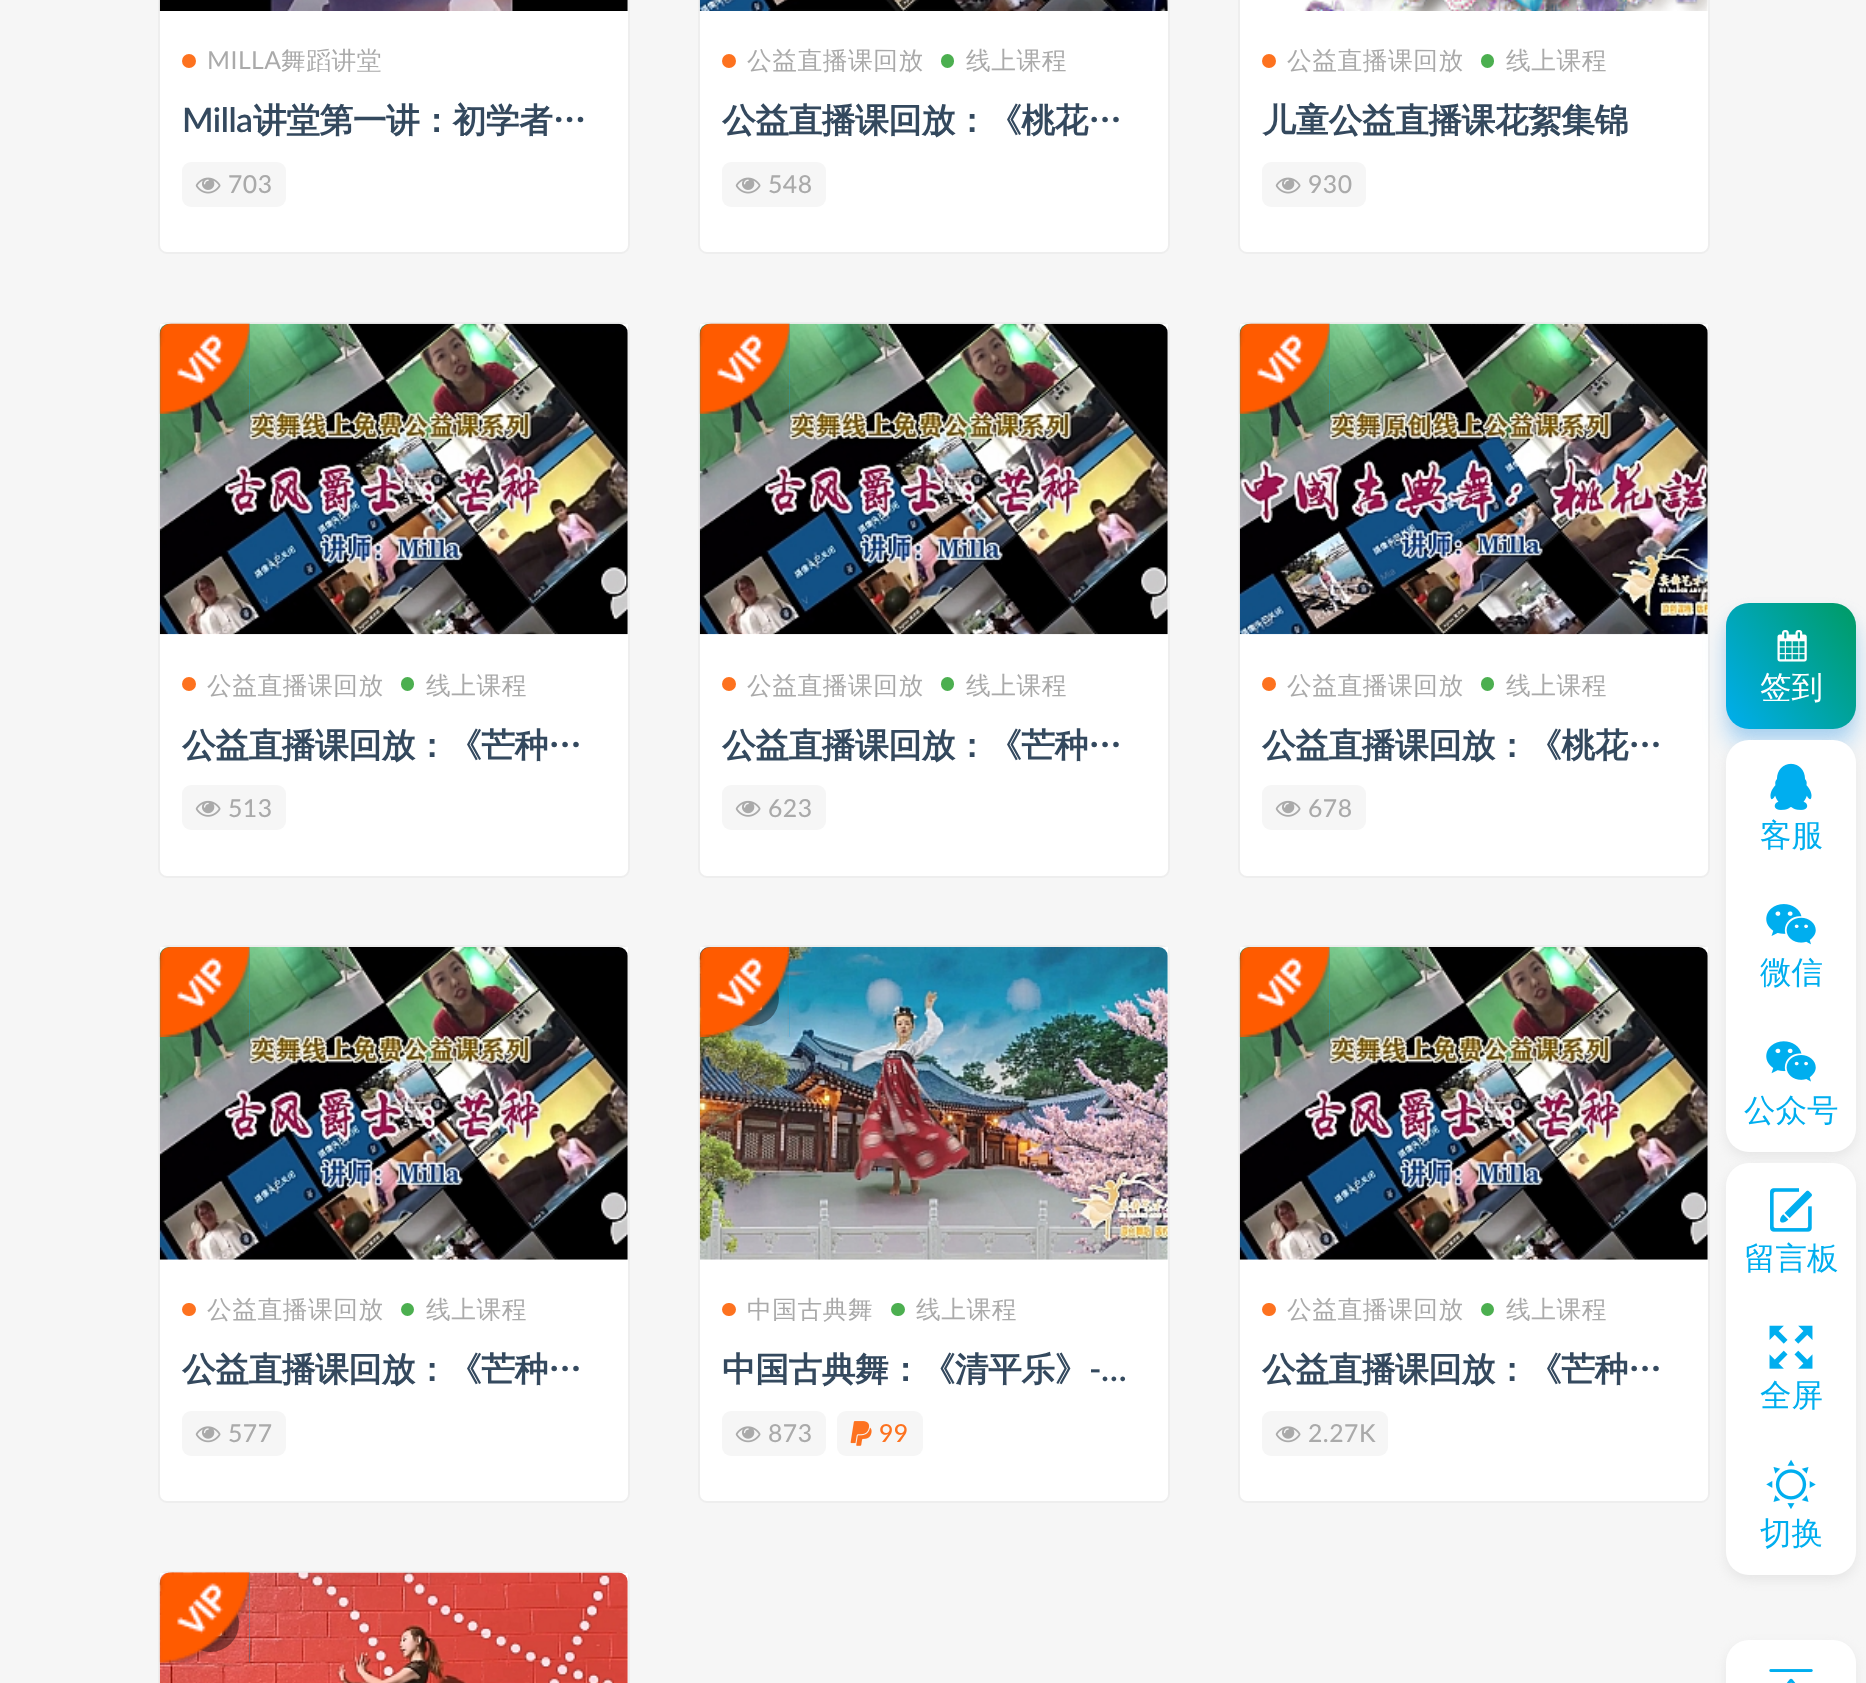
<!DOCTYPE html>
<meta charset="utf-8">
<style>body { margin: 0 } canvas { display: block }</style>
<canvas id="canvas" width="1866" height="1683"></canvas>
<img id="img1" src="img_01.png" hidden>
<img id="img2" src="img_02.png" hidden>
<img id="img3" src="img_03.png" hidden>
<img id="img4" src="img_04.png" hidden>
<img id="img5" src="img_05.png" hidden>
<img id="img6" src="img_06.png" hidden>
<img id="img7" src="img_07.png" hidden>
<img id="img8" src="img_08.png" hidden>
<img id="img9" src="img_09.png" hidden>
<img id="img10" src="img_10.png" hidden>
<img id="img11" src="img_11.png" hidden>
<img id="img12" src="img_12.png" hidden>
<img id="img13" src="img_13.png" hidden>
<img id="img14" src="img_14.png" hidden>
<img id="img15" src="img_15.png" hidden>
<img id="img16" src="img_17.png" hidden>
<img id="img17" src="img_16.png" hidden>
<img id="img18" src="img_18.png" hidden>
<img id="img19" src="img_19.png" hidden>
<img id="img20" src="img_20.png" hidden>
<img id="img21" src="img_22.png" hidden>
<img id="img22" src="img_21.png" hidden>
<img id="img23" src="img_23.png" hidden>
<img id="img24" src="img_24.png" hidden>
<img id="img25" src="img_25.png" hidden>
<img id="img26" src="img_26.png" hidden>
<img id="img27" src="img_27.png" hidden>
<img id="img28" src="img_28.png" hidden>
<img id="img29" src="img_29.png" hidden>
<img id="img30" src="img_30.png" hidden>
<script>
window.onload = function () {
	const canvas = document.getElementById("canvas");
	const ctx = canvas.getContext("2d");
	ctx.miterLimit = 4;
	ctx.fontKerning = "normal";
	function txt(s, x, y) {
		ctx.fillText(s, x, y);
	}
	function fill(x, y, w, h) {
		ctx.fillRect(x, y, w, h);
	}
	function round(x, y, w, h, r) {
		ctx.beginPath();
		ctx.roundRect(x, y, w, h, r);
		ctx.fill();
	}
	function img(id, x, y, w, h) {
		ctx.drawImage(document.getElementById(id), x, y, w, h);
	}
	let gradient;

	ctx.fillStyle = "#F6F6F6";
	fill(0, 0, 1866, 1683);
	ctx.fillStyle = "#FFFFFF";
	ctx.beginPath();
	ctx.roundRect(159, -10, 470, 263, 8);
	ctx.fill();
	ctx.strokeStyle = "#EEEEEE";
	ctx.lineWidth = 2;
	ctx.stroke();
	img("img1", 159, 0, 469, 11);
	ctx.fillStyle = "#FD721F";
	ctx.beginPath();
	ctx.arc(189, 61, 7, 0, Math.PI * 2);
	ctx.fill();
	ctx.fillStyle = "#F6F6F6";
	round(182, 162, 104, 45, 9);
	img("img2", 195, 177, 26, 17);
	ctx.fillStyle = "#FFFFFF";
	ctx.beginPath();
	ctx.roundRect(699, -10, 470, 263, 8);
	ctx.fill();
	ctx.stroke();
	img("img3", 699, 0, 469, 11);
	ctx.fillStyle = "#FD721F";
	ctx.beginPath();
	ctx.arc(729, 61, 7, 0, Math.PI * 2);
	ctx.fill();
	ctx.fillStyle = "#4CAF50";
	round(941, 54, 13, 14, 6.5);
	ctx.fillStyle = "#F6F6F6";
	round(722, 162, 104, 45, 9);
	img("img2", 735, 177, 26, 17);
	ctx.fillStyle = "#FFFFFF";
	ctx.beginPath();
	ctx.roundRect(1239, -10, 470, 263, 8);
	ctx.fill();
	ctx.stroke();
	img("img4", 1303, 0, 405, 11);
	ctx.fillStyle = "#FD721F";
	ctx.beginPath();
	ctx.arc(1269, 61, 7, 0, Math.PI * 2);
	ctx.fill();
	ctx.fillStyle = "#4CAF50";
	round(1481, 54, 13, 14, 6.5);
	ctx.fillStyle = "#F6F6F6";
	round(1262, 162, 104, 45, 9);
	img("img2", 1275, 177, 26, 17);
	ctx.fillStyle = "#FFFFFF";
	ctx.beginPath();
	ctx.roundRect(159, 323, 470, 554, 8);
	ctx.fill();
	ctx.stroke();
	fill(160, 324, 468, 6);
	img("img5", 159, 323, 469, 312);
	img("img6", 159, 323, 91, 91);
	ctx.fillStyle = "#FD721F";
	ctx.beginPath();
	ctx.arc(189, 684, 7, 0, Math.PI * 2);
	ctx.fill();
	ctx.fillStyle = "#4CAF50";
	round(401, 677, 13, 14, 6.5);
	ctx.fillStyle = "#F6F6F6";
	round(182, 785, 104, 45, 9);
	img("img7", 195, 800, 26, 17);
	ctx.fillStyle = "#FFFFFF";
	ctx.beginPath();
	ctx.roundRect(699, 323, 470, 554, 8);
	ctx.fill();
	ctx.stroke();
	fill(700, 324, 468, 6);
	img("img8", 699, 323, 469, 312);
	img("img9", 699, 323, 91, 91);
	ctx.fillStyle = "#FD721F";
	ctx.beginPath();
	ctx.arc(729, 684, 7, 0, Math.PI * 2);
	ctx.fill();
	ctx.fillStyle = "#4CAF50";
	round(941, 677, 13, 14, 6.5);
	ctx.fillStyle = "#F6F6F6";
	round(722, 785, 104, 45, 9);
	img("img7", 735, 800, 26, 17);
	ctx.fillStyle = "#FFFFFF";
	ctx.beginPath();
	ctx.roundRect(1239, 323, 470, 554, 8);
	ctx.fill();
	ctx.stroke();
	fill(1240, 324, 468, 6);
	img("img10", 1239, 323, 469, 312);
	img("img11", 1239, 323, 91, 91);
	ctx.fillStyle = "#FD721F";
	ctx.beginPath();
	ctx.arc(1269, 684, 7, 0, Math.PI * 2);
	ctx.fill();
	ctx.fillStyle = "#4CAF50";
	round(1481, 677, 13, 14, 6.5);
	ctx.fillStyle = "#F6F6F6";
	round(1262, 785, 104, 45, 9);
	img("img7", 1275, 800, 26, 17);
	ctx.fillStyle = "#FFFFFF";
	ctx.beginPath();
	ctx.roundRect(159, 946, 470, 556, 8);
	ctx.fill();
	ctx.stroke();
	fill(160, 947, 468, 6);
	img("img12", 159, 947, 469, 313);
	img("img13", 159, 947, 91, 90);
	ctx.fillStyle = "#FD721F";
	round(182, 1303, 14, 13, 6.5);
	ctx.fillStyle = "#4CAF50";
	ctx.beginPath();
	ctx.arc(407.5, 1309.5, 6.5, 0, Math.PI * 2);
	ctx.fill();
	ctx.fillStyle = "#F6F6F6";
	round(182, 1411, 104, 45, 9);
	img("img14", 195, 1426, 26, 17);
	ctx.fillStyle = "#FFFFFF";
	ctx.beginPath();
	ctx.roundRect(699, 946, 470, 556, 8);
	ctx.fill();
	ctx.stroke();
	fill(700, 947, 468, 6);
	img("img15", 699, 947, 469, 313);
	ctx.fillStyle = "rgba(0, 0, 0, 0.4)";
	round(722, 970, 57, 56, 28);
	img("img16", 755, 1005, 7, 6);
	img("img17", 699, 947, 91, 90);
	ctx.fillStyle = "#FD721F";
	round(722, 1303, 14, 13, 6.5);
	ctx.fillStyle = "#4CAF50";
	round(891, 1303, 14, 13, 6.5);
	ctx.fillStyle = "#F6F6F6";
	round(722, 1411, 104, 45, 9);
	img("img14", 735, 1426, 26, 17);
	round(837, 1411, 86, 45, 9);
	img("img18", 850, 1421, 22, 25);
	ctx.fillStyle = "#FFFFFF";
	ctx.beginPath();
	ctx.roundRect(1239, 946, 470, 556, 8);
	ctx.fill();
	ctx.stroke();
	fill(1240, 947, 468, 6);
	img("img12", 1239, 947, 469, 313);
	img("img19", 1239, 947, 91, 90);
	ctx.fillStyle = "#FD721F";
	round(1262, 1303, 14, 13, 6.5);
	ctx.fillStyle = "#4CAF50";
	ctx.beginPath();
	ctx.arc(1487.5, 1309.5, 6.5, 0, Math.PI * 2);
	ctx.fill();
	ctx.fillStyle = "#F6F6F6";
	round(1262, 1411, 126, 45, 9);
	img("img14", 1275, 1426, 26, 17);
	ctx.beginPath();
	ctx.roundRect(159, 1572, 470, 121, 8);
	ctx.stroke();
	ctx.fillStyle = "#FFFFFF";
	fill(160, 1573, 468, 110);
	img("img20", 159, 1572, 469, 111);
	ctx.fillStyle = "rgba(0, 0, 0, 0.4)";
	ctx.beginPath();
	ctx.arc(210.5, 1623.5, 28.5, 0, Math.PI * 2);
	ctx.fill();
	img("img21", 215, 1630, 7, 6);
	img("img22", 159, 1572, 91, 91);
	ctx.fillStyle = "#E6E6E6";
	ctx.filter = "blur(5.5px)";
	ctx.beginPath();
	ctx.roundRect(1726, 608, 130, 126, 23);
	ctx.fill();
	ctx.filter = "none";
	ctx.fillStyle = "rgba(32, 160, 255, 0.3)";
	ctx.filter = "blur(11px)";
	ctx.beginPath();
	ctx.roundRect(1726, 621, 130, 126, 23);
	ctx.fill();
	ctx.filter = "none";
	gradient = ctx.createLinearGradient(1864, 615, 1718, 717);
	gradient.addColorStop(0, "#009B63");
	gradient.addColorStop(1, "#00AEEF");
	ctx.fillStyle = gradient;
	round(1726, 603, 130, 126, 23);
	img("img23", 1777, 630, 30, 32);
	ctx.fillStyle = "#E6E6E6";
	ctx.filter = "blur(5.5px)";
	ctx.beginPath();
	ctx.roundRect(1726, 745, 130, 412, 23);
	ctx.fill();
	ctx.filter = "none";
	ctx.fillStyle = "#FFFFFF";
	round(1726, 740, 130, 412, 23);
	img("img24", 1770, 763, 42, 47);
	img("img25", 1766, 904, 50, 41);
	img("img26", 1766, 1041, 50, 41);
	ctx.fillStyle = "#E6E6E6";
	ctx.filter = "blur(5.5px)";
	ctx.beginPath();
	ctx.roundRect(1726, 1168, 130, 412, 23);
	ctx.fill();
	ctx.filter = "none";
	ctx.fillStyle = "#FFFFFF";
	round(1726, 1163, 130, 412, 23);
	img("img27", 1770, 1188, 42, 44);
	img("img28", 1769, 1325, 44, 44);
	img("img29", 1766, 1459, 50, 50);
	ctx.fillStyle = "#E6E6E6";
	ctx.filter = "blur(5.5px)";
	ctx.beginPath();
	ctx.roundRect(1726, 1645, 130, 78, 23);
	ctx.fill();
	ctx.filter = "none";
	ctx.fillStyle = "#FFFFFF";
	round(1726, 1640, 130, 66, 23);
	img("img30", 1769, 1669, 44, 14);
	ctx.letterSpacing = "0.5px";
	ctx.font = "24.75px Lato";
	ctx.fillStyle = "#AAAAAA";
	txt("MILLA", 207, 69);
	ctx.font = "500 24.75px WenQuanYi Zen Hei";
	txt("舞蹈讲堂", 281, 69);
	ctx.letterSpacing = "-0.5px";
	ctx.font = "600 33.75px Lato";
	ctx.fillStyle = "#34495E";
	txt("Milla", 182, 132);
	ctx.font = "bold 33.75px WenQuanYi Zen Hei";
	txt("讲堂第一讲：初学者…", 253, 132);
	ctx.letterSpacing = "0.5px";
	ctx.font = "500 24.75px Lato";
	ctx.fillStyle = "#AAAAAA";
	txt("703", 228, 193);
	ctx.font = "500 24.75px WenQuanYi Zen Hei";
	txt("公益直播课回放", 747, 69);
	txt("线上课程", 966, 69);
	ctx.letterSpacing = "-0.5px";
	ctx.font = "bold 33.75px WenQuanYi Zen Hei";
	ctx.fillStyle = "#34495E";
	txt("公益直播课回放：《桃花…", 722, 132);
	ctx.letterSpacing = "0.5px";
	ctx.font = "500 24.75px Lato";
	ctx.fillStyle = "#AAAAAA";
	txt("548", 768, 193);
	ctx.font = "500 24.75px WenQuanYi Zen Hei";
	txt("公益直播课回放", 1287, 69);
	txt("线上课程", 1506, 69);
	ctx.letterSpacing = "-0.5px";
	ctx.font = "bold 33.75px WenQuanYi Zen Hei";
	ctx.fillStyle = "#34495E";
	txt("儿童公益直播课花絮集锦", 1262, 132);
	ctx.letterSpacing = "0.5px";
	ctx.font = "500 24.75px Lato";
	ctx.fillStyle = "#AAAAAA";
	txt("930", 1308, 193);
	ctx.font = "500 24.75px WenQuanYi Zen Hei";
	txt("公益直播课回放", 207, 694);
	txt("线上课程", 426, 694);
	ctx.letterSpacing = "-0.5px";
	ctx.font = "bold 33.75px WenQuanYi Zen Hei";
	ctx.fillStyle = "#34495E";
	txt("公益直播课回放：《芒种…", 182, 757);
	ctx.letterSpacing = "0.5px";
	ctx.font = "500 24.75px Lato";
	ctx.fillStyle = "#AAAAAA";
	txt("513", 228, 817);
	ctx.font = "500 24.75px WenQuanYi Zen Hei";
	txt("公益直播课回放", 747, 694);
	txt("线上课程", 966, 694);
	ctx.letterSpacing = "-0.5px";
	ctx.font = "bold 33.75px WenQuanYi Zen Hei";
	ctx.fillStyle = "#34495E";
	txt("公益直播课回放：《芒种…", 722, 757);
	ctx.letterSpacing = "0.5px";
	ctx.font = "500 24.75px Lato";
	ctx.fillStyle = "#AAAAAA";
	txt("623", 768, 817);
	ctx.font = "500 24.75px WenQuanYi Zen Hei";
	txt("公益直播课回放", 1287, 694);
	txt("线上课程", 1506, 694);
	ctx.letterSpacing = "-0.5px";
	ctx.font = "bold 33.75px WenQuanYi Zen Hei";
	ctx.fillStyle = "#34495E";
	txt("公益直播课回放：《桃花…", 1262, 757);
	ctx.letterSpacing = "0.5px";
	ctx.font = "500 24.75px Lato";
	ctx.fillStyle = "#AAAAAA";
	txt("678", 1308, 817);
	ctx.font = "500 24.75px WenQuanYi Zen Hei";
	txt("公益直播课回放", 207, 1318);
	txt("线上课程", 426, 1318);
	ctx.letterSpacing = "-0.5px";
	ctx.font = "bold 33.75px WenQuanYi Zen Hei";
	ctx.fillStyle = "#34495E";
	txt("公益直播课回放：《芒种…", 182, 1381);
	ctx.letterSpacing = "0.5px";
	ctx.font = "500 24.75px Lato";
	ctx.fillStyle = "#AAAAAA";
	txt("577", 228, 1442);
	ctx.font = "500 24.75px WenQuanYi Zen Hei";
	txt("中国古典舞", 747, 1318);
	txt("线上课程", 916, 1318);
	ctx.letterSpacing = "-0.5px";
	ctx.font = "bold 33.75px WenQuanYi Zen Hei";
	ctx.fillStyle = "#34495E";
	txt("中国古典舞：《清平乐》", 722, 1381);
	ctx.font = "600 33.75px Lato";
	txt("-…", 1089, 1381);
	ctx.letterSpacing = "0.5px";
	ctx.font = "500 24.75px Lato";
	ctx.fillStyle = "#AAAAAA";
	txt("873", 768, 1442);
	ctx.fillStyle = "#FD721F";
	txt("99", 879, 1442);
	ctx.font = "500 24.75px WenQuanYi Zen Hei";
	ctx.fillStyle = "#AAAAAA";
	txt("公益直播课回放", 1287, 1318);
	txt("线上课程", 1506, 1318);
	ctx.letterSpacing = "-0.5px";
	ctx.font = "bold 33.75px WenQuanYi Zen Hei";
	ctx.fillStyle = "#34495E";
	txt("公益直播课回放：《芒种…", 1262, 1381);
	ctx.letterSpacing = "0.5px";
	ctx.font = "500 24.75px Lato";
	ctx.fillStyle = "#AAAAAA";
	txt("2.27K", 1308, 1442);
	ctx.letterSpacing = "0px";
	ctx.font = "500 31.5px WenQuanYi Zen Hei";
	ctx.fillStyle = "#FFFFFF";
	txt("签到", 1760, 698);
	ctx.fillStyle = "#00AEEF";
	txt("客服", 1760, 846);
	txt("微信", 1760, 983);
	txt("公众号", 1744, 1121);
	txt("留言板", 1744, 1269);
	txt("全屏", 1760, 1406);
	txt("切换", 1760, 1544);
};
</script>
